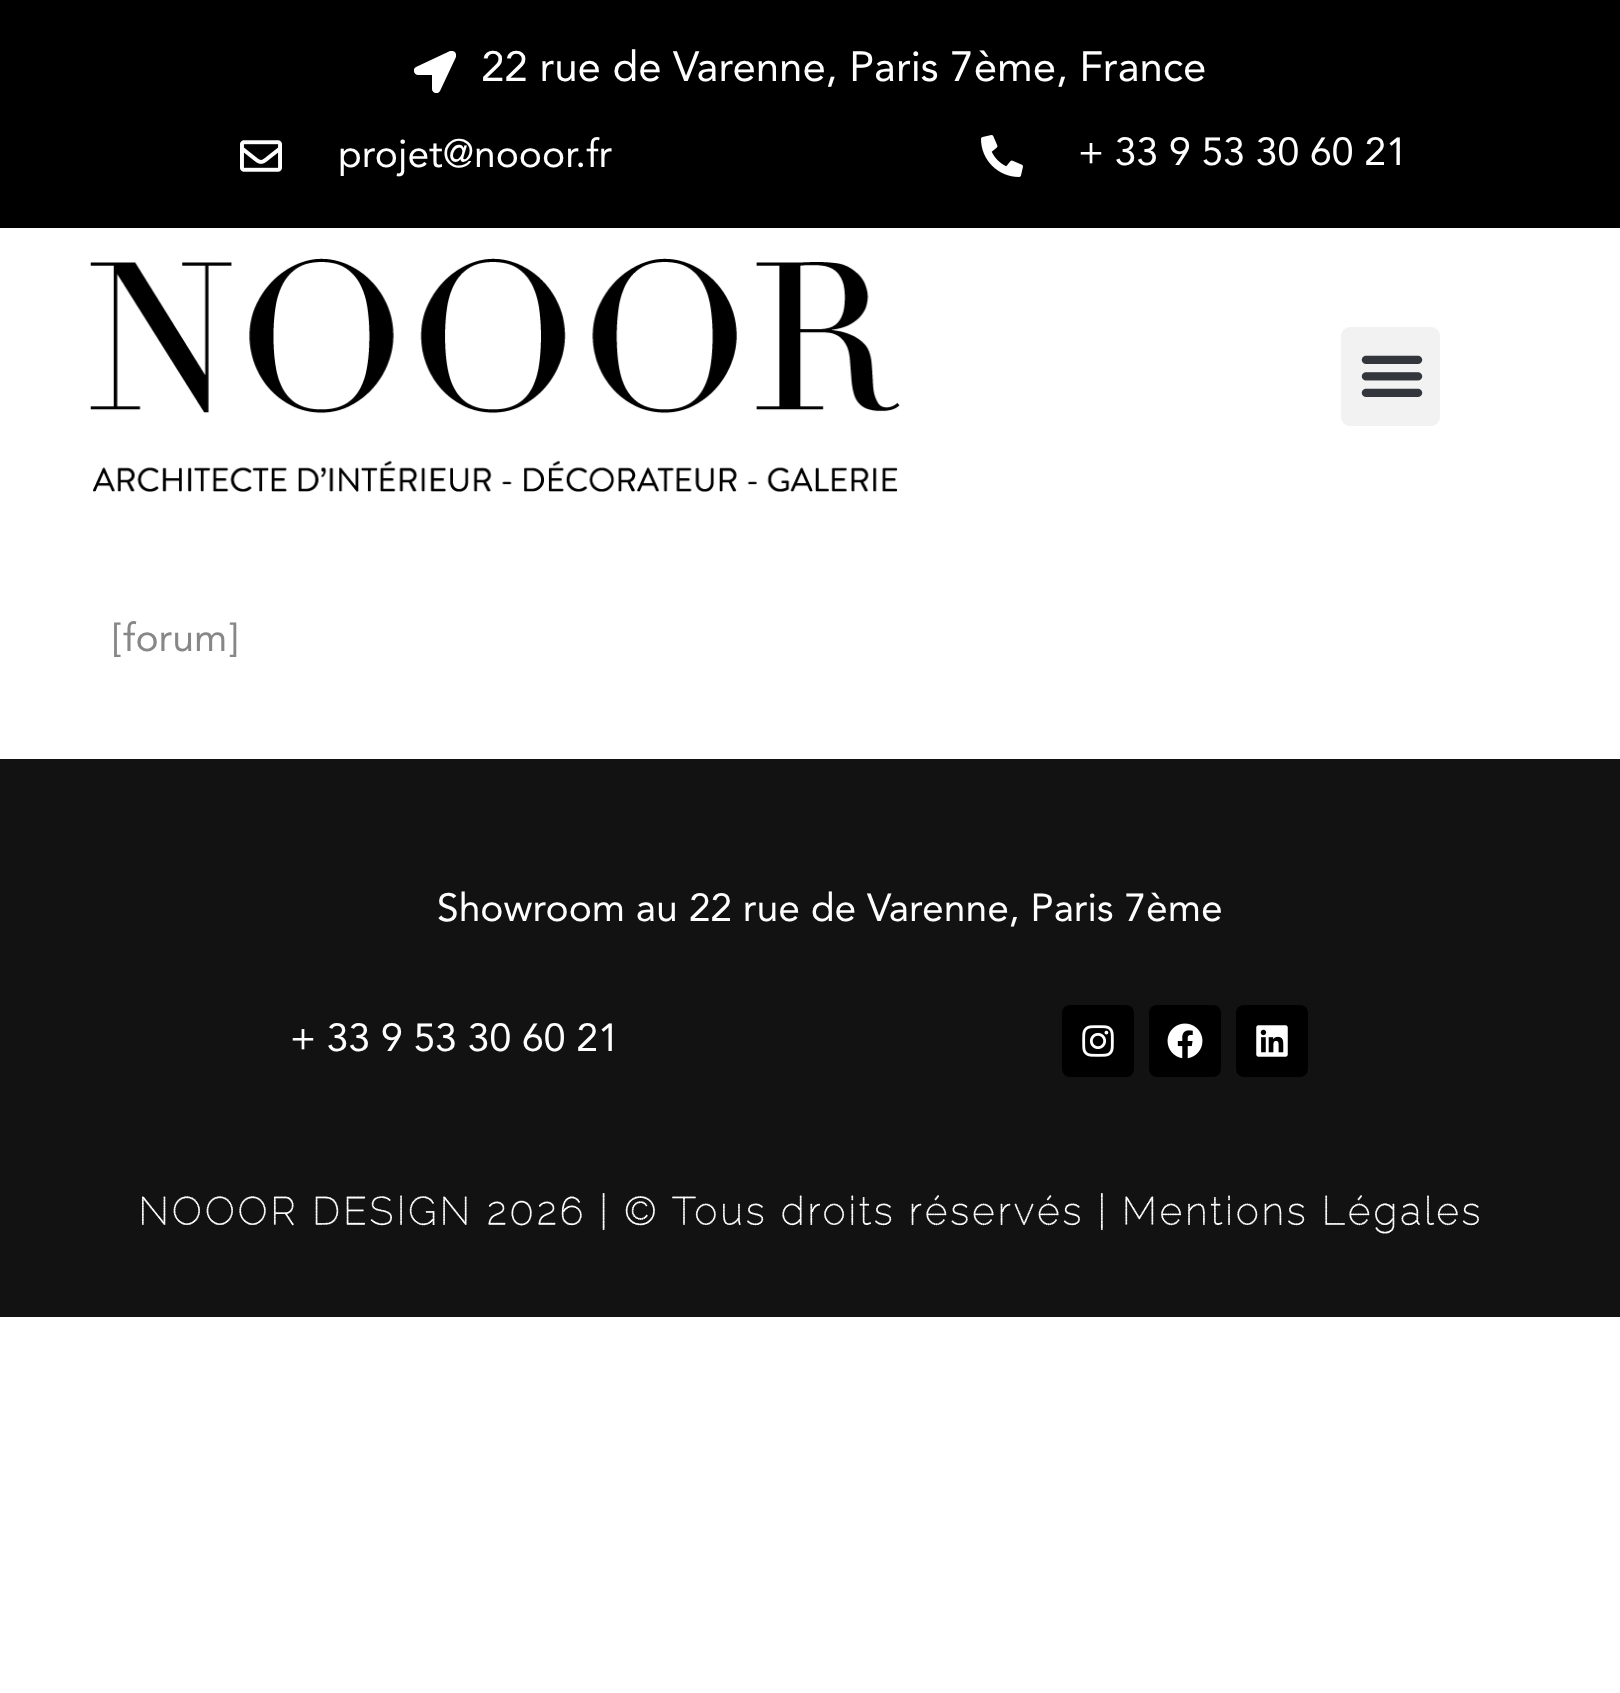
<!DOCTYPE html>
<meta charset="utf-8">
<style>body { margin: 0 } canvas { display: block }</style>
<canvas id="canvas" width="1620" height="1693"></canvas>
<img id="img1" src="img_01.png" hidden>
<img id="img2" src="img_02.png" hidden>
<img id="img3" src="img_03.png" hidden>
<img id="img4" src="img_04.png" hidden>
<img id="img5" src="img_05.png" hidden>
<img id="img6" src="img_06.png" hidden>
<img id="img7" src="img_07.png" hidden>
<script>
window.onload = function () {
	const canvas = document.getElementById("canvas");
	const ctx = canvas.getContext("2d");
	ctx.miterLimit = 4;
	ctx.fontKerning = "normal";
	function txt(s, x, y) {
		ctx.fillText(s, x, y);
	}
	function fill(x, y, w, h) {
		ctx.fillRect(x, y, w, h);
	}
	function round(x, y, w, h, r) {
		ctx.beginPath();
		ctx.roundRect(x, y, w, h, r);
		ctx.fill();
	}
	function img(id, x, y, w, h) {
		ctx.drawImage(document.getElementById(id), x, y, w, h);
	}

	ctx.fillStyle = "#FFFFFF";
	fill(0, 0, 1620, 1693);
	ctx.fillStyle = "#000000";
	fill(0, 0, 1620, 228);
	ctx.save();
	ctx.beginPath();
	ctx.rect(414, 51, 42, 42);
	ctx.clip();
	ctx.fillStyle = "#FFFFFF";
	ctx.beginPath();
	ctx.moveTo(450, 51);
	ctx.lineTo(416, 67);
	ctx.bezierCurveTo(412, 69, 414, 75, 418, 75);
	ctx.lineTo(432, 75);
	ctx.lineTo(432, 89);
	ctx.bezierCurveTo(432, 93, 438, 95, 440, 91);
	ctx.lineTo(456, 57);
	ctx.bezierCurveTo(457, 53, 454, 50, 450, 51);
	ctx.closePath();
	ctx.fill();
	ctx.restore();
	img("img1", 240, 140, 42, 32);
	img("img2", 981, 135, 42, 42);
	img("img3", 90, 258, 810, 234);
	ctx.fillStyle = "#F2F2F2";
	round(1341, 327, 99, 99, 9);
	img("img4", 1361, 355, 62, 42);
	ctx.fillStyle = "#121212";
	fill(0, 759, 1620, 558);
	ctx.fillStyle = "#000000";
	round(1062, 1005, 72, 72, 8);
	img("img5", 1082, 1025, 32, 32);
	round(1149, 1005, 72, 72, 8);
	img("img6", 1167, 1023, 36, 36);
	round(1236, 1005, 72, 72, 8);
	img("img7", 1256, 1025, 32, 32);
	ctx.font = "42px Avenir";
	ctx.fillStyle = "#FFFFFF";
	txt("22 rue de Varenne, Paris 7ème, France", 481, 81);
	ctx.font = "39px Avenir";
	txt("projet@nooor.fr", 338, 167);
	txt("+ 33 9 53 30 60 21", 1078, 165);
	ctx.fillStyle = "#878787";
	txt("[forum]", 113, 651);
	ctx.fillStyle = "#FFFFFF";
	txt("Showroom au 22 rue de Varenne, Paris 7ème", 437, 921);
	txt("+ 33 9 53 30 60 21", 290, 1051);
	ctx.letterSpacing = "3px";
	ctx.font = "bold 39px Raleway Dots";
	txt("NOOOR DESIGN 2026 | © Tous droits réservés | Mentions Légales", 138, 1225);
};
</script>
